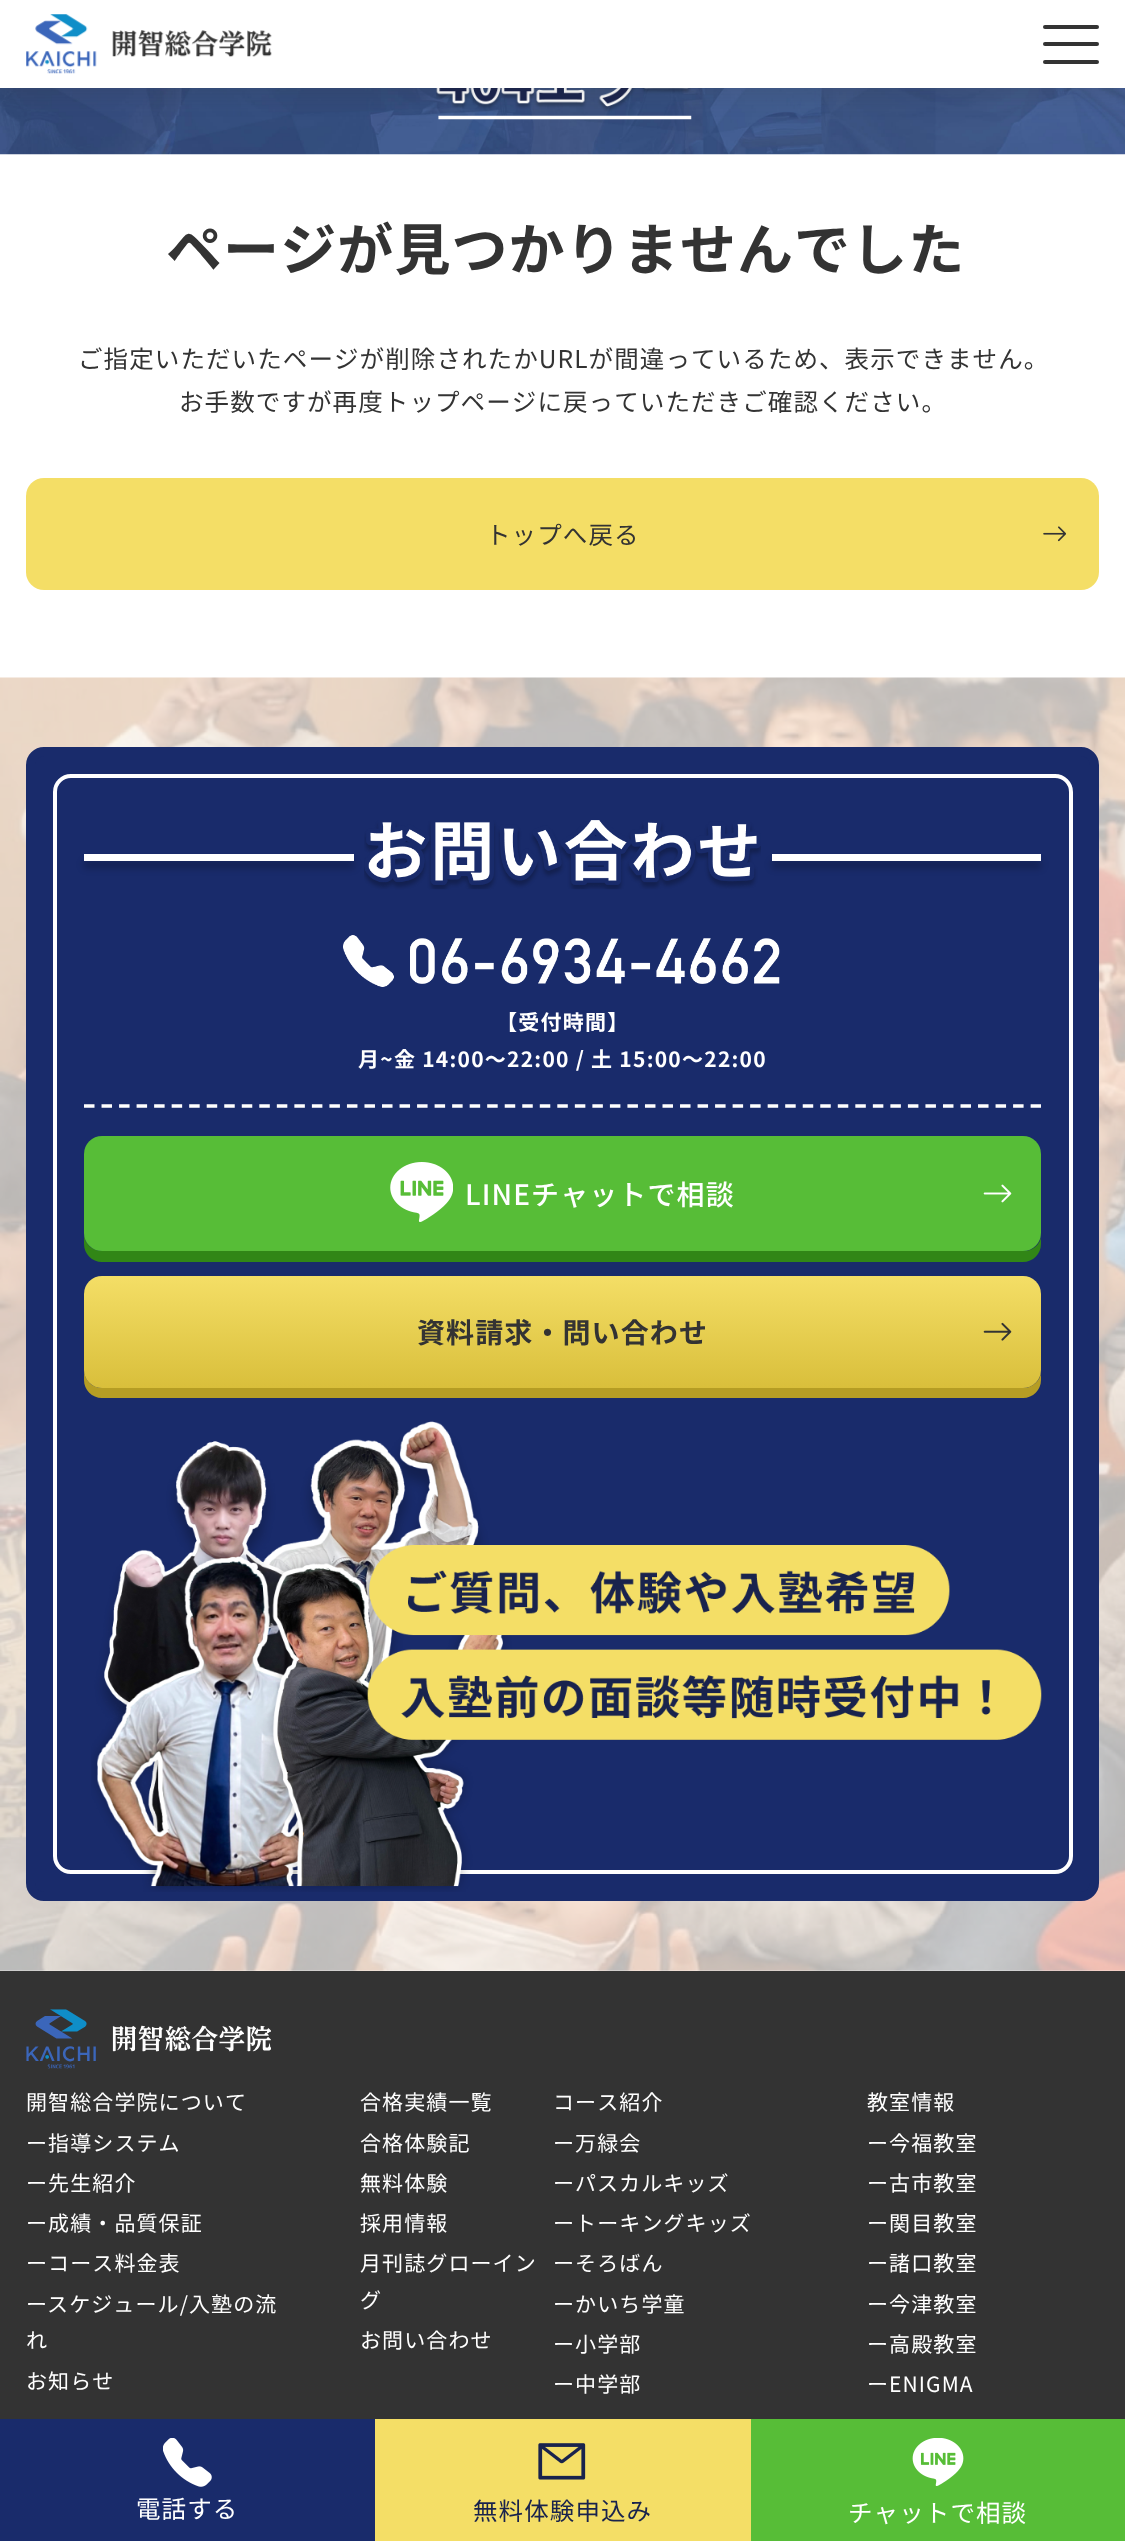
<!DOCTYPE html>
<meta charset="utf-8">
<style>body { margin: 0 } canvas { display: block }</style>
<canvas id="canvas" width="1125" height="2541"></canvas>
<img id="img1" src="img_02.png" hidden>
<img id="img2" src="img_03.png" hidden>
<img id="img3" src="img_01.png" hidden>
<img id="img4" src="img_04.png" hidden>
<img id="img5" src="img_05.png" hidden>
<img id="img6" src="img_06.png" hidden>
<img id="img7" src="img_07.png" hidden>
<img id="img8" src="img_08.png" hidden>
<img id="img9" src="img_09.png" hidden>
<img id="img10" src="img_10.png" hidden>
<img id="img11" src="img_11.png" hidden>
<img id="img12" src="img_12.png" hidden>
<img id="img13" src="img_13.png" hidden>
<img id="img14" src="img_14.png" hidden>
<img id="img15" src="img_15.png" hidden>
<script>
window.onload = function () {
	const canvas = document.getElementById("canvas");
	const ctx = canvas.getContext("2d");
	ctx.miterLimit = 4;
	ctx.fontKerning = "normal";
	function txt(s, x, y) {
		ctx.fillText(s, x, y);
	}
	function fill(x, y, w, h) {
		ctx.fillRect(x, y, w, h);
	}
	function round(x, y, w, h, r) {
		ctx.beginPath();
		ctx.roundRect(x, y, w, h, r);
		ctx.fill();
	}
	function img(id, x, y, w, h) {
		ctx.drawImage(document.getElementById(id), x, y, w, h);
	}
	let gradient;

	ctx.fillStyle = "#FFFFFF";
	fill(0, 0, 1125, 2541);
	img("img1", 0, 88, 1125, 67);
	img("img2", 436, 88, 256, 32);
	ctx.fillStyle = "rgba(51, 51, 51, 0.15)";
	ctx.filter = "blur(10.5px)";
	ctx.beginPath();
	ctx.rect(0, 7, 1125, 88);
	ctx.fill();
	ctx.filter = "none";
	ctx.fillStyle = "#FFFFFF";
	fill(0, 0, 1125, 88);
	img("img3", 26, 14, 246, 60);
	ctx.fillStyle = "#333333";
	round(1043, 25, 56, 4, 2);
	round(1043, 42, 56, 4, 2);
	round(1043, 60, 56, 4, 2);
	ctx.fillStyle = "#F4DE66";
	round(26, 478, 1073, 112, 18);
	img("img4", 1043, 526, 23, 16);
	img("img5", 0, 677, 1125, 1294);
	ctx.fillStyle = "#192B6B";
	ctx.beginPath();
	ctx.roundRect(30.5, 751.5, 1064, 1145, 13.5);
	ctx.fill();
	ctx.strokeStyle = "#192B6B";
	ctx.lineWidth = 9;
	ctx.stroke();
	ctx.beginPath();
	ctx.roundRect(55, 776, 1016, 1096, 16);
	ctx.strokeStyle = "#FFFFFF";
	ctx.lineWidth = 4;
	ctx.stroke();
	ctx.fillStyle = "rgba(0, 0, 0, 0.25)";
	ctx.filter = "blur(3.5px)";
	ctx.beginPath();
	ctx.rect(84, 861, 270, 7);
	ctx.fill();
	ctx.filter = "none";
	ctx.fillStyle = "#FFFFFF";
	fill(84, 854, 270, 7);
	img("img6", 364, 820, 397, 70);
	ctx.fillStyle = "rgba(0, 0, 0, 0.25)";
	ctx.filter = "blur(3.5px)";
	ctx.beginPath();
	ctx.rect(772, 861, 269, 7);
	ctx.fill();
	ctx.filter = "none";
	ctx.fillStyle = "#FFFFFF";
	fill(772, 854, 269, 7);
	ctx.beginPath();
	ctx.moveTo(84, 1106);
	ctx.lineTo(1041, 1106);
	ctx.lineWidth = 3.5;
	ctx.setLineDash([10.5, 7.03]);
	ctx.stroke();
	img("img7", 343, 935, 437, 52);
	ctx.fillStyle = "#318616";
	ctx.beginPath();
	ctx.moveTo(84, 1234);
	ctx.lineTo(84, 1244);
	ctx.bezierCurveTo(84, 1254, 92, 1262, 102, 1262);
	ctx.lineTo(1023, 1262);
	ctx.bezierCurveTo(1033, 1262, 1041, 1254, 1041, 1244);
	ctx.lineTo(1041, 1237);
	ctx.bezierCurveTo(1040, 1245, 1032, 1251, 1024, 1251);
	ctx.lineTo(102, 1251);
	ctx.bezierCurveTo(92, 1251, 84, 1243, 84, 1234);
	ctx.closePath();
	ctx.fill();
	ctx.fillStyle = "#57BD37";
	round(84, 1136, 957, 115, 18);
	img("img8", 390, 1162, 63, 60);
	img("img9", 983, 1184, 29, 19);
	ctx.fillStyle = "#B59D24";
	ctx.beginPath();
	ctx.moveTo(84, 1370);
	ctx.lineTo(84, 1380);
	ctx.bezierCurveTo(84, 1390, 92, 1398, 102, 1398);
	ctx.lineTo(1023, 1398);
	ctx.bezierCurveTo(1033, 1398, 1041, 1390, 1041, 1380);
	ctx.lineTo(1041, 1373);
	ctx.bezierCurveTo(1040, 1381, 1032, 1388, 1024, 1388);
	ctx.lineTo(102, 1388);
	ctx.bezierCurveTo(92, 1388, 84, 1380, 84, 1370);
	ctx.closePath();
	ctx.fill();
	gradient = ctx.createLinearGradient(563, 1276, 563, 1388);
	gradient.addColorStop(0, "#F4DE66");
	gradient.addColorStop(1, "#D9BF3B");
	ctx.fillStyle = gradient;
	round(84, 1276, 957, 112, 18);
	img("img10", 983, 1322, 29, 19);
	img("img11", 91, 1421, 951, 471);
	ctx.fillStyle = "#333333";
	fill(0, 1971, 1125, 448);
	img("img12", 26, 2009, 245, 60);
	ctx.fillStyle = "#192B6B";
	fill(0, 2419, 375, 122);
	img("img13", 163, 2438, 49, 49);
	ctx.fillStyle = "#F4DE66";
	fill(375, 2419, 376, 122);
	img("img14", 538, 2443, 48, 37);
	ctx.fillStyle = "#57BD37";
	fill(751, 2419, 374, 122);
	img("img15", 912, 2438, 52, 48);
	ctx.letterSpacing = "1.1px";
	ctx.font = "bold 56px Noto Sans JP";
	ctx.fillStyle = "#333333";
	txt("ページが見つかりませんでした", 166, 270);
	ctx.font = "24.5px Noto Sans JP";
	txt("ご指定いただいたページが削除されたかURLが間違っているため、表示できません。", 78, 368);
	txt("お手数ですが再度トップページに戻っていただきご確認ください。", 179, 411);
	txt("トップへ戻る", 486, 544);
	ctx.letterSpacing = "1.25px";
	ctx.font = "bold 21px Noto Sans JP";
	ctx.fillStyle = "#FFFFFF";
	txt("【受付時間】", 496, 1030);
	txt("月~金 14:00～22:00 / 土 15:00～22:00", 358, 1067);
	ctx.letterSpacing = "1.1px";
	ctx.font = "500 28px Noto Sans JP";
	txt("LINEチャットで相談", 465, 1205);
	ctx.font = "bold 28px Noto Sans JP";
	ctx.fillStyle = "#333333";
	txt("資料請求・問い合わせ", 417, 1343);
	ctx.font = "21px Noto Sans JP";
	ctx.fillStyle = "#FFFFFF";
	txt("開智総合学院について", 26, 2110);
	txt("ー指導システム", 26, 2151);
	txt("ー先生紹介", 26, 2191);
	txt("ー成績・品質保証", 26, 2231);
	txt("ーコース料金表", 26, 2271);
	txt("ースケジュール/入塾の流", 26, 2312);
	txt("れ", 26, 2348);
	txt("お知らせ", 26, 2389);
	txt("合格実績一覧", 360, 2110);
	txt("合格体験記", 360, 2151);
	txt("無料体験", 360, 2191);
	txt("採用情報", 360, 2231);
	txt("月刊誌グローイン", 360, 2271);
	txt("グ", 360, 2308);
	txt("お問い合わせ", 360, 2348);
	txt("コース紹介", 553, 2110);
	txt("ー万緑会", 553, 2151);
	txt("ーパスカルキッズ", 553, 2191);
	txt("ートーキングキッズ", 553, 2231);
	txt("ーそろばん", 553, 2271);
	txt("ーかいち学童", 553, 2312);
	txt("ー小学部", 553, 2352);
	txt("ー中学部", 553, 2392);
	txt("教室情報", 867, 2110);
	txt("ー今福教室", 867, 2151);
	txt("ー古市教室", 867, 2191);
	txt("ー関目教室", 867, 2231);
	txt("ー諸口教室", 867, 2271);
	txt("ー今津教室", 867, 2312);
	txt("ー高殿教室", 867, 2352);
	txt("ーENIGMA", 867, 2392);
	ctx.font = "24.5px Noto Sans JP";
	txt("電話する", 136, 2518);
	ctx.fillStyle = "#19234D";
	txt("無料体験申込み", 473, 2520);
	ctx.fillStyle = "#FFFFFF";
	txt("チャットで相談", 848, 2522);
};
</script>
